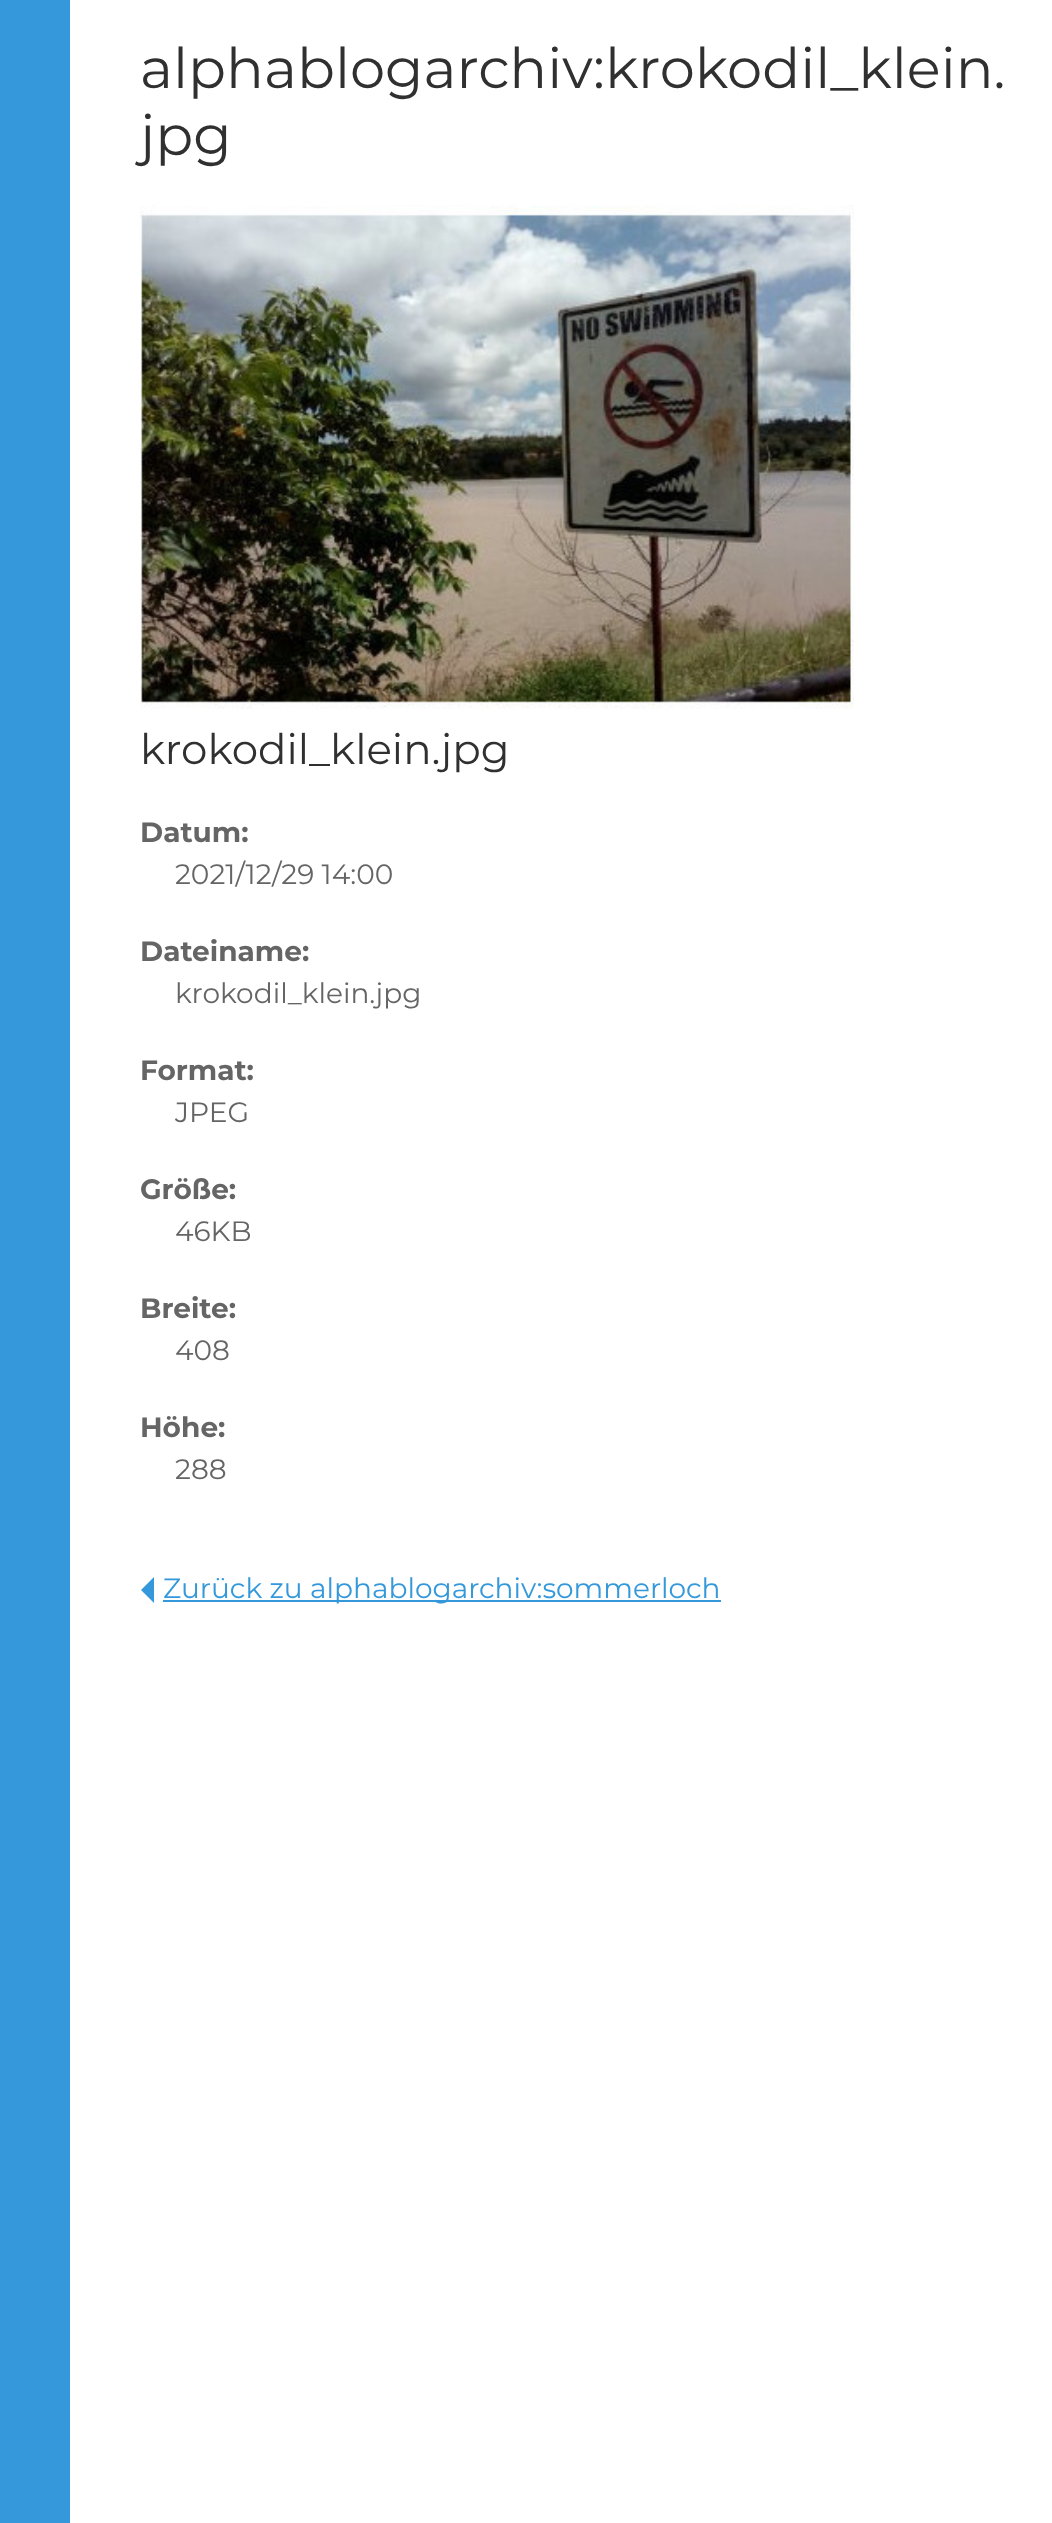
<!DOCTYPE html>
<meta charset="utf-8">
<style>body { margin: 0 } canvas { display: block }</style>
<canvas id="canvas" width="1052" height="2523"></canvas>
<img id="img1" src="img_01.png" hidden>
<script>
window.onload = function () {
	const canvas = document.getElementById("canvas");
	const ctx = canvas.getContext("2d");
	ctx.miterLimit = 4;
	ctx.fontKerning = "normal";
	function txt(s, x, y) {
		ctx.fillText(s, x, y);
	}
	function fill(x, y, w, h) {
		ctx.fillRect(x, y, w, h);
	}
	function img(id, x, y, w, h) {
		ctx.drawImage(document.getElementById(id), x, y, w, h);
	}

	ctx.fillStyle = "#FFFFFF";
	fill(0, 0, 1052, 2523);
	ctx.fillStyle = "#3498DB";
	fill(0, 0, 70, 2523);
	img("img1", 140, 205, 714, 504);
	ctx.beginPath();
	ctx.moveTo(154, 1577);
	ctx.lineTo(154, 1603);
	ctx.lineTo(141, 1590);
	ctx.closePath();
	ctx.fill();
	fill(163, 1600, 558, 2);
	ctx.font = "56px Montserrat";
	ctx.fillStyle = "#303030";
	txt("alphablogarchiv:krokodil_klein.", 140, 88);
	txt("jpg", 140, 155);
	ctx.font = "42px Montserrat";
	txt("krokodil_klein.jpg", 140, 764);
	ctx.font = "bold 28px Montserrat";
	ctx.fillStyle = "#656565";
	txt("Datum:", 140, 842);
	ctx.font = "28px Montserrat";
	txt("2021/12/29 14:00", 175, 884);
	ctx.font = "bold 28px Montserrat";
	txt("Dateiname:", 140, 961);
	ctx.font = "28px Montserrat";
	txt("krokodil_klein.jpg", 175, 1003);
	ctx.font = "bold 28px Montserrat";
	txt("Format:", 140, 1080);
	ctx.font = "28px Montserrat";
	txt("JPEG", 175, 1122);
	ctx.font = "bold 28px Montserrat";
	txt("Größe:", 140, 1199);
	ctx.font = "28px Montserrat";
	txt("46KB", 175, 1241);
	ctx.font = "bold 28px Montserrat";
	txt("Breite:", 140, 1318);
	ctx.font = "28px Montserrat";
	txt("408", 175, 1360);
	ctx.font = "bold 28px Montserrat";
	txt("Höhe:", 140, 1437);
	ctx.font = "28px Montserrat";
	txt("288", 175, 1479);
	ctx.fillStyle = "#3498DB";
	txt("Zurück zu alphablogarchiv:sommerloch", 163, 1598);
};
</script>
